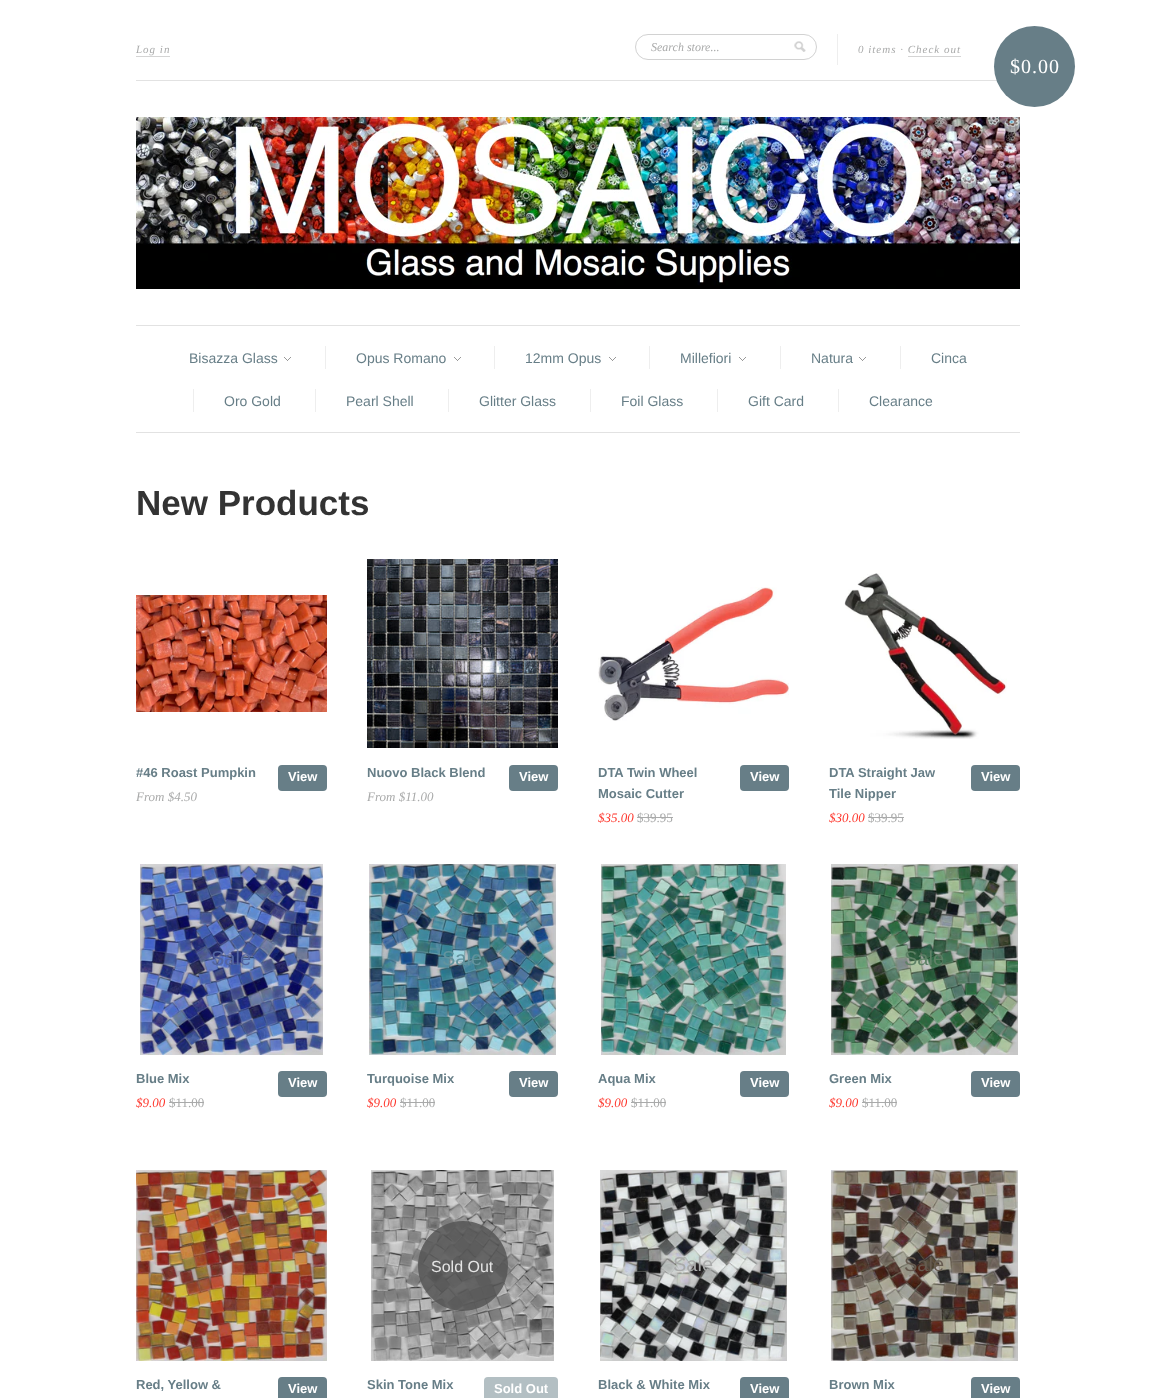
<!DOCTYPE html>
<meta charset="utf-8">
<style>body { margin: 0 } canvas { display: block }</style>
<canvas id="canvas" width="1156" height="1398"></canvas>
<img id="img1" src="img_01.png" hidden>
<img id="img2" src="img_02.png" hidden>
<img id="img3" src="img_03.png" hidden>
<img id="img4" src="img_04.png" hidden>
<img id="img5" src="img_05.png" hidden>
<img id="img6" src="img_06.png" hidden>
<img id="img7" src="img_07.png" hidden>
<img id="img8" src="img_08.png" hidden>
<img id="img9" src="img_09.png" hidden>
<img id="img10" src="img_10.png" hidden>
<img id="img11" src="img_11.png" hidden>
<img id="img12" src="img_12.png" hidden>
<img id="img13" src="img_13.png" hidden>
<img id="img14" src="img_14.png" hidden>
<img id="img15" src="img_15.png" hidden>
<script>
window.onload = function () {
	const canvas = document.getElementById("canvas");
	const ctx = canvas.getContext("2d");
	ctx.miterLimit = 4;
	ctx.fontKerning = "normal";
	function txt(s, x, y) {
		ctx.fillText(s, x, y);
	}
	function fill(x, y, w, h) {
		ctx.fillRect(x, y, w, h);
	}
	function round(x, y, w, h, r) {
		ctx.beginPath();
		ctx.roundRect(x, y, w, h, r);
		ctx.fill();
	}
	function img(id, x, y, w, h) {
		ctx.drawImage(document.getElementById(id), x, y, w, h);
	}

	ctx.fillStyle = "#FFFFFF";
	fill(0, 0, 1156, 1398);
	ctx.fillStyle = "#E2E2E2";
	fill(136, 432, 884, 1);
	fill(136, 80, 861, 1);
	ctx.fillStyle = "#D4D4D4";
	fill(136, 56, 34, 1);
	ctx.beginPath();
	ctx.roundRect(635.5, 34.5, 181, 25, 12.5);
	ctx.strokeStyle = "#D2D2D2";
	ctx.stroke();
	img("img1", 794, 41, 12, 11);
	ctx.fillStyle = "#EEEEEE";
	fill(837, 34, 1, 31);
	ctx.fillStyle = "#D4D4D4";
	fill(908, 56, 53, 1);
	ctx.fillStyle = "#677E87";
	ctx.beginPath();
	ctx.arc(1034.5, 66.5, 40.5, 0, Math.PI * 2);
	ctx.fill();
	img("img2", 136, 117, 884, 172);
	ctx.fillStyle = "#E2E2E2";
	fill(136, 325, 884, 1);
	img("img3", 284, 357, 7, 4);
	ctx.fillStyle = "#EEEEEE";
	fill(325, 346, 1, 23);
	img("img3", 454, 357, 7, 4);
	fill(494, 346, 1, 23);
	img("img3", 609, 357, 7, 4);
	fill(649, 346, 1, 23);
	img("img3", 739, 357, 7, 4);
	fill(780, 346, 1, 23);
	img("img3", 859, 357, 7, 4);
	fill(900, 346, 1, 23);
	fill(193, 389, 1, 23);
	fill(315, 389, 1, 23);
	fill(448, 389, 1, 23);
	fill(590, 389, 1, 23);
	fill(717, 389, 1, 23);
	fill(838, 389, 1, 23);
	img("img4", 136, 595, 191, 117);
	ctx.fillStyle = "#677E87";
	round(278, 765, 49, 26, 4);
	img("img5", 367, 559, 191, 189);
	round(509, 765, 49, 26, 4);
	img("img6", 598, 587, 191, 134);
	ctx.fillStyle = "#A9AAAA";
	fill(637, 817, 36, 1);
	ctx.fillStyle = "#677E87";
	round(740, 765, 49, 26, 4);
	img("img7", 844, 573, 163, 166);
	ctx.fillStyle = "#A9AAAA";
	fill(868, 817, 36, 1);
	ctx.fillStyle = "#677E87";
	round(971, 765, 49, 26, 4);
	img("img8", 140, 864, 183, 191);
	ctx.fillStyle = "#A9AAAA";
	fill(169, 1102, 35, 1);
	ctx.fillStyle = "#677E87";
	round(278, 1071, 49, 26, 4);
	img("img9", 369, 864, 187, 191);
	ctx.fillStyle = "#A9AAAA";
	fill(400, 1102, 35, 1);
	ctx.fillStyle = "#677E87";
	round(509, 1071, 49, 26, 4);
	img("img10", 601, 864, 185, 191);
	ctx.fillStyle = "#A9AAAA";
	fill(631, 1102, 35, 1);
	ctx.fillStyle = "#677E87";
	round(740, 1071, 49, 26, 4);
	img("img11", 831, 864, 187, 191);
	ctx.fillStyle = "#A9AAAA";
	fill(862, 1102, 35, 1);
	ctx.fillStyle = "#677E87";
	round(971, 1071, 49, 26, 4);
	img("img12", 136, 1170, 191, 191);
	round(278, 1377, 49, 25, 4);
	img("img13", 371, 1170, 183, 191);
	ctx.fillStyle = "rgba(85, 85, 85, 0.84)";
	ctx.beginPath();
	ctx.arc(463, 1266, 45, 0, Math.PI * 2);
	ctx.fill();
	ctx.fillStyle = "#B3BFC3";
	round(484, 1377, 74, 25, 4);
	img("img14", 600, 1170, 187, 191);
	ctx.fillStyle = "#677E87";
	round(740, 1377, 49, 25, 4);
	img("img15", 831, 1170, 187, 191);
	round(971, 1377, 49, 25, 4);
	ctx.letterSpacing = "1px";
	ctx.font = "italic 11px Liberation Serif";
	ctx.fillStyle = "#A9AAAA";
	txt("Log in", 136, 53);
	ctx.letterSpacing = "0px";
	ctx.font = "italic 12px Liberation Serif";
	txt("Search store...", 651, 51);
	ctx.letterSpacing = "1px";
	ctx.font = "italic 11px Liberation Serif";
	txt("0 items · Check out", 858, 53);
	ctx.font = "20px Liberation Serif";
	ctx.fillStyle = "#FFFFFF";
	txt("$0.00", 1010, 73);
	ctx.letterSpacing = "0px";
	ctx.font = "14px Liberation Sans";
	ctx.fillStyle = "#677E87";
	txt("Bisazza Glass", 189, 363);
	txt("Opus Romano", 356, 363);
	txt("12mm Opus", 525, 363);
	txt("Millefiori", 680, 363);
	txt("Natura", 811, 363);
	txt("Cinca", 931, 363);
	txt("Oro Gold", 224, 406);
	txt("Pearl Shell", 346, 406);
	txt("Glitter Glass", 479, 406);
	txt("Foil Glass", 621, 406);
	txt("Gift Card", 748, 406);
	txt("Clearance", 869, 406);
	ctx.font = "bold 35px Liberation Sans";
	ctx.fillStyle = "#333333";
	txt("New Products", 136, 515);
	ctx.font = "bold 13px Liberation Sans";
	ctx.fillStyle = "#677E87";
	txt("#46 Roast Pumpkin", 136, 777);
	ctx.font = "italic 13px Liberation Serif";
	ctx.fillStyle = "#A9AAAA";
	txt("From $4.50", 136, 801);
	ctx.font = "bold 13px Liberation Sans";
	ctx.fillStyle = "#FFFFFF";
	txt("View", 288, 781);
	ctx.fillStyle = "#677E87";
	txt("Nuovo Black Blend", 367, 777);
	ctx.font = "italic 13px Liberation Serif";
	ctx.fillStyle = "#A9AAAA";
	txt("From $11.00", 367, 801);
	ctx.font = "bold 13px Liberation Sans";
	ctx.fillStyle = "#FFFFFF";
	txt("View", 519, 781);
	ctx.fillStyle = "#677E87";
	txt("DTA Twin Wheel", 598, 777);
	txt("Mosaic Cutter", 598, 798);
	ctx.font = "italic 13px Liberation Serif";
	ctx.fillStyle = "#FE362C";
	txt("$35.00", 598, 822);
	ctx.font = "13px Liberation Serif";
	ctx.fillStyle = "#A9AAAA";
	txt("$39.95", 637, 822);
	ctx.font = "bold 13px Liberation Sans";
	ctx.fillStyle = "#FFFFFF";
	txt("View", 750, 781);
	ctx.fillStyle = "#677E87";
	txt("DTA Straight Jaw", 829, 777);
	txt("Tile Nipper", 829, 798);
	ctx.font = "italic 13px Liberation Serif";
	ctx.fillStyle = "#FE362C";
	txt("$30.00", 829, 822);
	ctx.font = "13px Liberation Serif";
	ctx.fillStyle = "#A9AAAA";
	txt("$39.95", 868, 822);
	ctx.font = "bold 13px Liberation Sans";
	ctx.fillStyle = "#FFFFFF";
	txt("View", 981, 781);
	ctx.font = "20px Liberation Sans";
	ctx.fillStyle = "#5264A1";
	txt("Sale", 211, 965);
	ctx.font = "bold 13px Liberation Sans";
	ctx.fillStyle = "#677E87";
	txt("Blue Mix", 136, 1083);
	ctx.font = "italic 13px Liberation Serif";
	ctx.fillStyle = "#FE362C";
	txt("$9.00", 136, 1107);
	ctx.font = "13px Liberation Serif";
	ctx.fillStyle = "#A9AAAA";
	txt("$11.00", 169, 1107);
	ctx.font = "bold 13px Liberation Sans";
	ctx.fillStyle = "#FFFFFF";
	txt("View", 288, 1087);
	ctx.font = "20px Liberation Sans";
	ctx.fillStyle = "#63949E";
	txt("Sale", 442, 965);
	ctx.font = "bold 13px Liberation Sans";
	ctx.fillStyle = "#677E87";
	txt("Turquoise Mix", 367, 1083);
	ctx.font = "italic 13px Liberation Serif";
	ctx.fillStyle = "#FE362C";
	txt("$9.00", 367, 1107);
	ctx.font = "13px Liberation Serif";
	ctx.fillStyle = "#A9AAAA";
	txt("$11.00", 400, 1107);
	ctx.font = "bold 13px Liberation Sans";
	ctx.fillStyle = "#FFFFFF";
	txt("View", 519, 1087);
	ctx.fillStyle = "#677E87";
	txt("Aqua Mix", 598, 1083);
	ctx.font = "italic 13px Liberation Serif";
	ctx.fillStyle = "#FE362C";
	txt("$9.00", 598, 1107);
	ctx.font = "13px Liberation Serif";
	ctx.fillStyle = "#A9AAAA";
	txt("$11.00", 631, 1107);
	ctx.font = "bold 13px Liberation Sans";
	ctx.fillStyle = "#FFFFFF";
	txt("View", 750, 1087);
	ctx.font = "20px Liberation Sans";
	ctx.fillStyle = "#5E8166";
	txt("Sale", 904, 965);
	ctx.font = "bold 13px Liberation Sans";
	ctx.fillStyle = "#677E87";
	txt("Green Mix", 829, 1083);
	ctx.font = "italic 13px Liberation Serif";
	ctx.fillStyle = "#FE362C";
	txt("$9.00", 829, 1107);
	ctx.font = "13px Liberation Serif";
	ctx.fillStyle = "#A9AAAA";
	txt("$11.00", 862, 1107);
	ctx.font = "bold 13px Liberation Sans";
	ctx.fillStyle = "#FFFFFF";
	txt("View", 981, 1087);
	ctx.fillStyle = "#677E87";
	txt("Red, Yellow &", 136, 1389);
	ctx.fillStyle = "#FFFFFF";
	txt("View", 288, 1393);
	ctx.font = "16px Liberation Sans";
	ctx.fillStyle = "#E5E5E5";
	txt("Sold Out", 431, 1272);
	ctx.font = "bold 13px Liberation Sans";
	ctx.fillStyle = "#677E87";
	txt("Skin Tone Mix", 367, 1389);
	ctx.fillStyle = "#FFFFFF";
	txt("Sold Out", 494, 1393);
	ctx.font = "20px Liberation Sans";
	ctx.fillStyle = "#A9AAAA";
	txt("Sale", 673, 1271);
	ctx.font = "bold 13px Liberation Sans";
	ctx.fillStyle = "#677E87";
	txt("Black & White Mix", 598, 1389);
	ctx.fillStyle = "#FFFFFF";
	txt("View", 750, 1393);
	ctx.font = "20px Liberation Sans";
	ctx.fillStyle = "#665B50";
	txt("Sale", 904, 1271);
	ctx.font = "bold 13px Liberation Sans";
	ctx.fillStyle = "#677E87";
	txt("Brown Mix", 829, 1389);
	ctx.fillStyle = "#FFFFFF";
	txt("View", 981, 1393);
};
</script>
